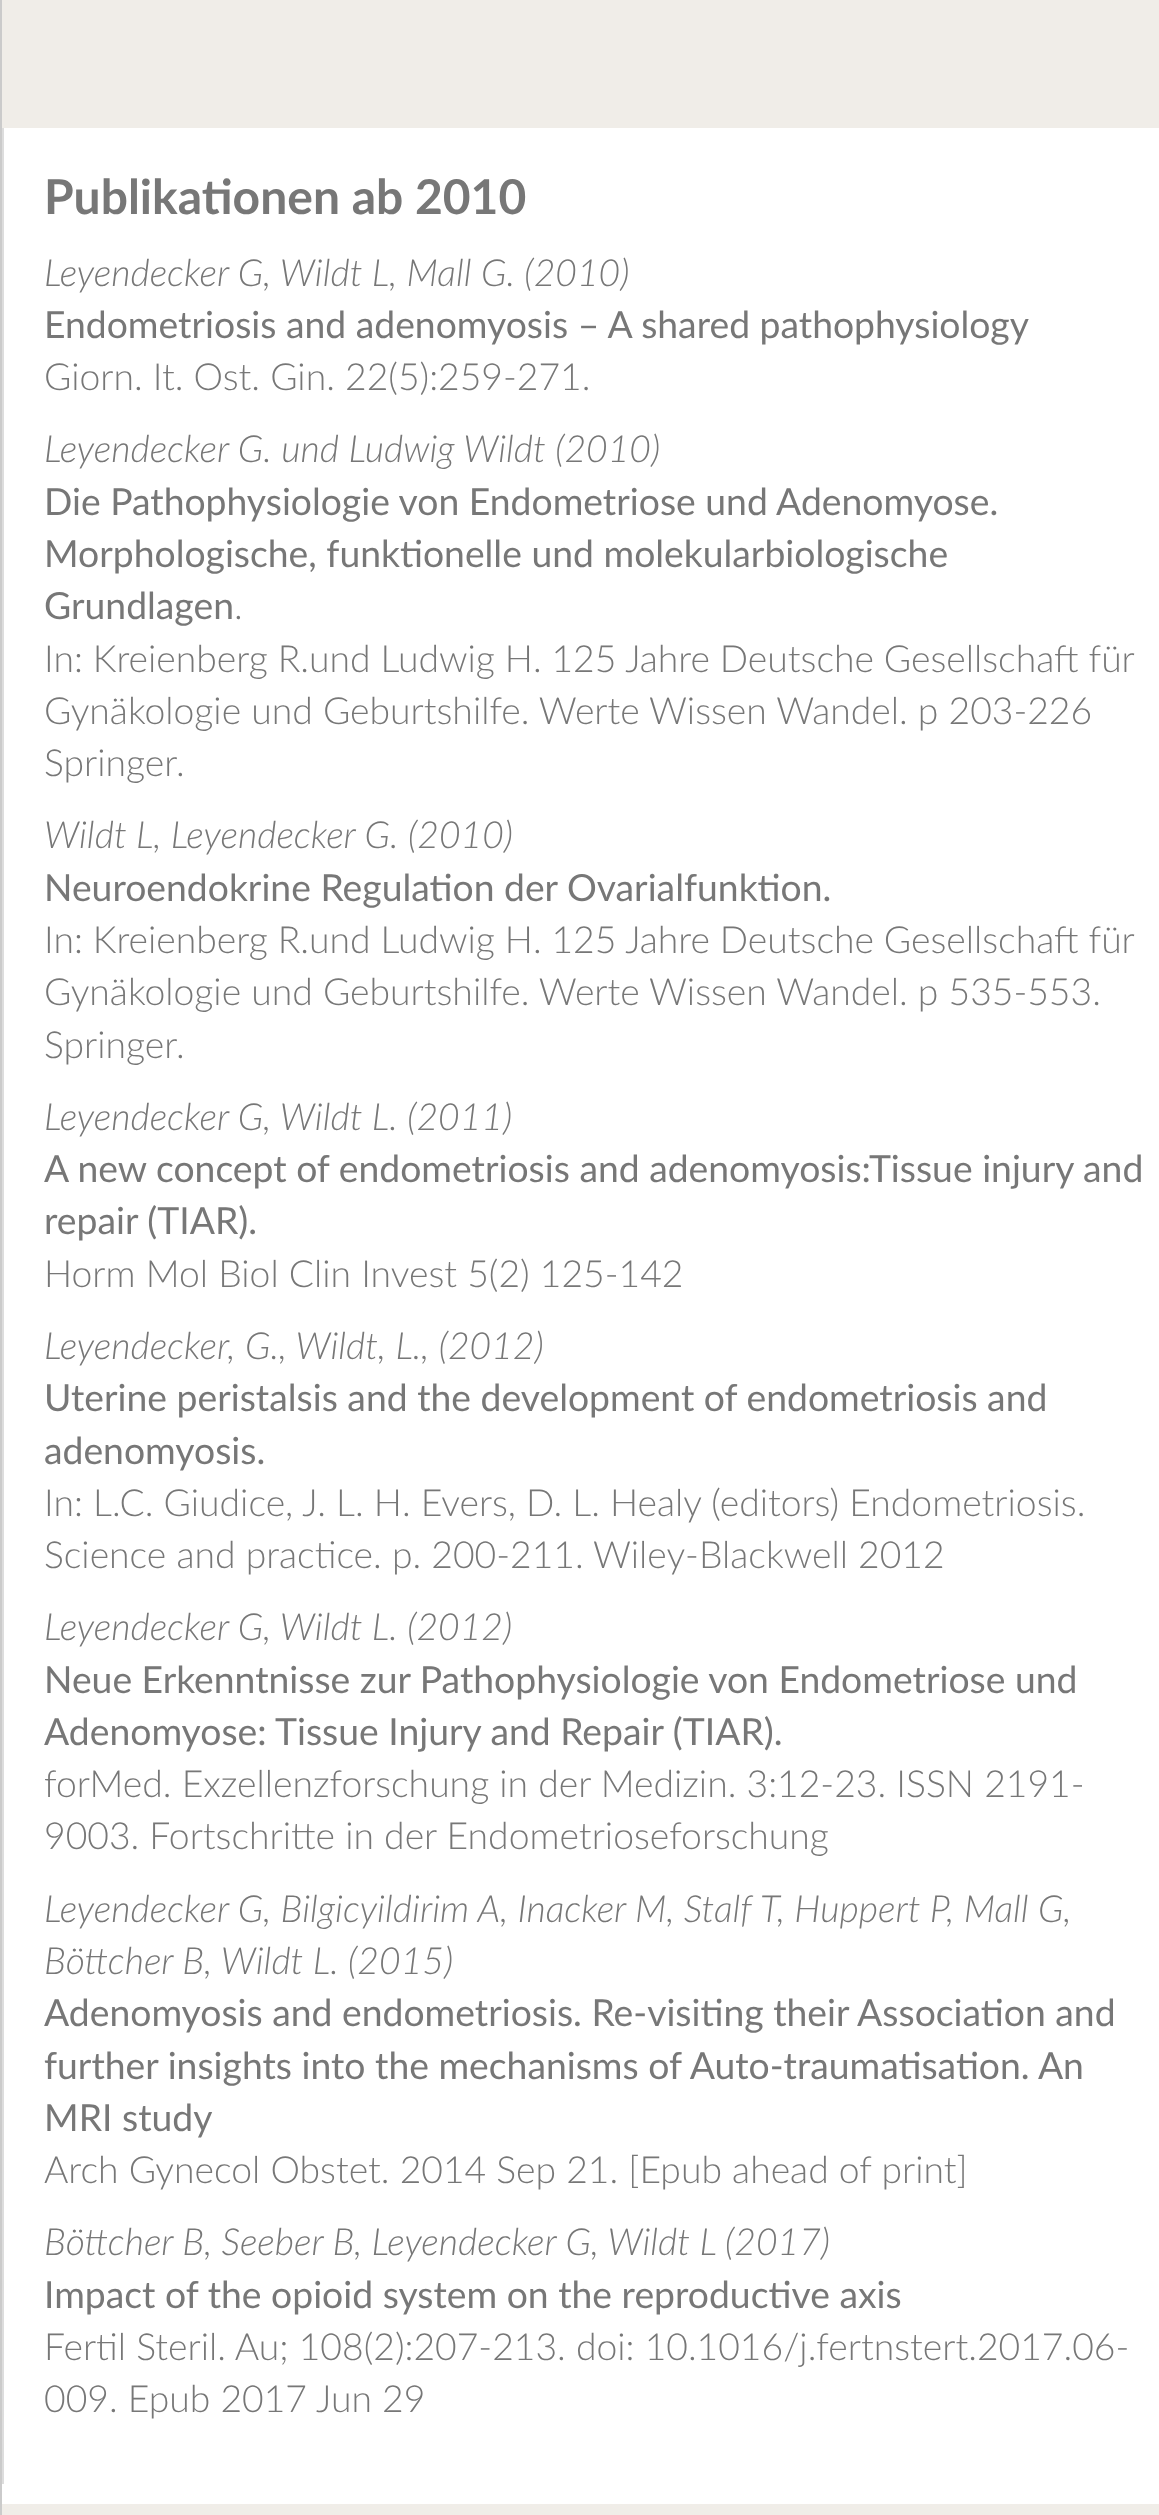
<!DOCTYPE html>
<meta charset="utf-8">
<style>body { margin: 0 } canvas { display: block }</style>
<canvas id="canvas" width="1159" height="2515"></canvas>
<script>
window.onload = function () {
	const canvas = document.getElementById("canvas");
	const ctx = canvas.getContext("2d");
	ctx.miterLimit = 4;
	ctx.fontKerning = "normal";
	function txt(s, x, y) {
		ctx.fillText(s, x, y);
	}
	function fill(x, y, w, h) {
		ctx.fillRect(x, y, w, h);
	}

	ctx.fillStyle = "#FFFFFF";
	fill(0, 0, 1159, 2515);
	ctx.fillStyle = "#CBCBCB";
	fill(0, 0, 2, 2515);
	ctx.fillStyle = "#F0EDE8";
	fill(2, 0, 1157, 128);
	ctx.fillStyle = "#DDDDDD";
	fill(2, 128, 2, 2356);
	ctx.fillStyle = "#F0EDE8";
	fill(2, 2504, 1157, 11);
	ctx.font = "bold 48px Lato";
	ctx.fillStyle = "#777777";
	txt("Publikationen ab 2010", 44, 214);
	ctx.font = "italic 300 37.3px Lato";
	txt("Leyendecker G, Wildt L, Mall G. (2010)", 44, 286);
	ctx.font = "37.3px Lato";
	txt("Endometriosis and adenomyosis – A shared pathophysiology", 44, 338);
	ctx.font = "300 37.3px Lato";
	txt("Giorn. It. Ost. Gin. 22(5):259-271.", 44, 390);
	ctx.font = "italic 300 37.3px Lato";
	txt("Leyendecker G. und Ludwig Wildt (2010)", 44, 462);
	ctx.font = "37.3px Lato";
	txt("Die Pathophysiologie von Endometriose und Adenomyose.", 44, 515);
	txt("Morphologische, funktionelle und molekularbiologische", 44, 567);
	txt("Grundlagen", 44, 619);
	ctx.font = "300 37.3px Lato";
	txt(".", 234, 619);
	ctx.wordSpacing = "-0.25px";
	txt("In: Kreienberg R.und Ludwig H. 125 Jahre Deutsche Gesellschaft für", 44, 672);
	ctx.wordSpacing = "0px";
	txt("Gynäkologie und Geburtshilfe. Werte Wissen Wandel. p 203-226", 44, 724);
	txt("Springer.", 44, 776);
	ctx.font = "italic 300 37.3px Lato";
	txt("Wildt L, Leyendecker G. (2010)", 44, 848);
	ctx.font = "37.3px Lato";
	txt("Neuroendokrine Regulation der Ovarialfunktion.", 44, 901);
	ctx.wordSpacing = "-0.25px";
	ctx.font = "300 37.3px Lato";
	txt("In: Kreienberg R.und Ludwig H. 125 Jahre Deutsche Gesellschaft für", 44, 953);
	ctx.wordSpacing = "0px";
	txt("Gynäkologie und Geburtshilfe. Werte Wissen Wandel. p 535-553.", 44, 1005);
	txt("Springer.", 44, 1058);
	ctx.font = "italic 300 37.3px Lato";
	txt("Leyendecker G, Wildt L. (2011)", 44, 1130);
	ctx.font = "37.3px Lato";
	txt("A new concept of endometriosis and adenomyosis:Tissue injury and", 44, 1182);
	txt("repair (TIAR).", 44, 1234);
	ctx.font = "300 37.3px Lato";
	txt("Horm Mol Biol Clin Invest 5(2) 125-142", 44, 1287);
	ctx.font = "italic 300 37.3px Lato";
	txt("Leyendecker, G., Wildt, L., (2012)", 44, 1359);
	ctx.font = "37.3px Lato";
	txt("Uterine peristalsis and the development of endometriosis and", 44, 1411);
	txt("adenomyosis.", 44, 1464);
	ctx.font = "300 37.3px Lato";
	txt("In: L.C. Giudice, J. L. H. Evers, D. L. Healy (editors) Endometriosis.", 44, 1516);
	txt("Science and practice. p. 200-211. Wiley-Blackwell 2012", 44, 1568);
	ctx.font = "italic 300 37.3px Lato";
	txt("Leyendecker G, Wildt L. (2012)", 44, 1640);
	ctx.font = "37.3px Lato";
	txt("Neue Erkenntnisse zur Pathophysiologie von Endometriose und", 44, 1693);
	txt("Adenomyose: Tissue Injury and Repair (TIAR).", 44, 1745);
	ctx.font = "300 37.3px Lato";
	txt("forMed. Exzellenzforschung in der Medizin. 3:12-23. ISSN 2191-", 44, 1797);
	txt("9003. Fortschritte in der Endometrioseforschung", 44, 1849);
	ctx.font = "italic 300 37.3px Lato";
	txt("Leyendecker G, Bilgicyildirim A, Inacker M, Stalf T, Huppert P, Mall G,", 44, 1922);
	txt("Böttcher B, Wildt L. (2015)", 44, 1974);
	ctx.font = "37.3px Lato";
	txt("Adenomyosis and endometriosis. Re-visiting their Association and", 44, 2026);
	txt("further insights into the mechanisms of Auto-traumatisation. An", 44, 2079);
	txt("MRI study", 44, 2131);
	ctx.font = "300 37.3px Lato";
	txt("Arch Gynecol Obstet. 2014 Sep 21. [Epub ahead of print]", 44, 2183);
	ctx.font = "italic 300 37.3px Lato";
	txt("Böttcher B, Seeber B, Leyendecker G, Wildt L (2017)", 44, 2255);
	ctx.font = "37.3px Lato";
	txt("Impact of the opioid system on the reproductive axis", 44, 2308);
	ctx.font = "300 37.3px Lato";
	txt("Fertil Steril. Au; 108(2):207-213. doi: 10.1016/j.fertnstert.2017.06-", 44, 2360);
	txt("009. Epub 2017 Jun 29", 44, 2412);
};
</script>
